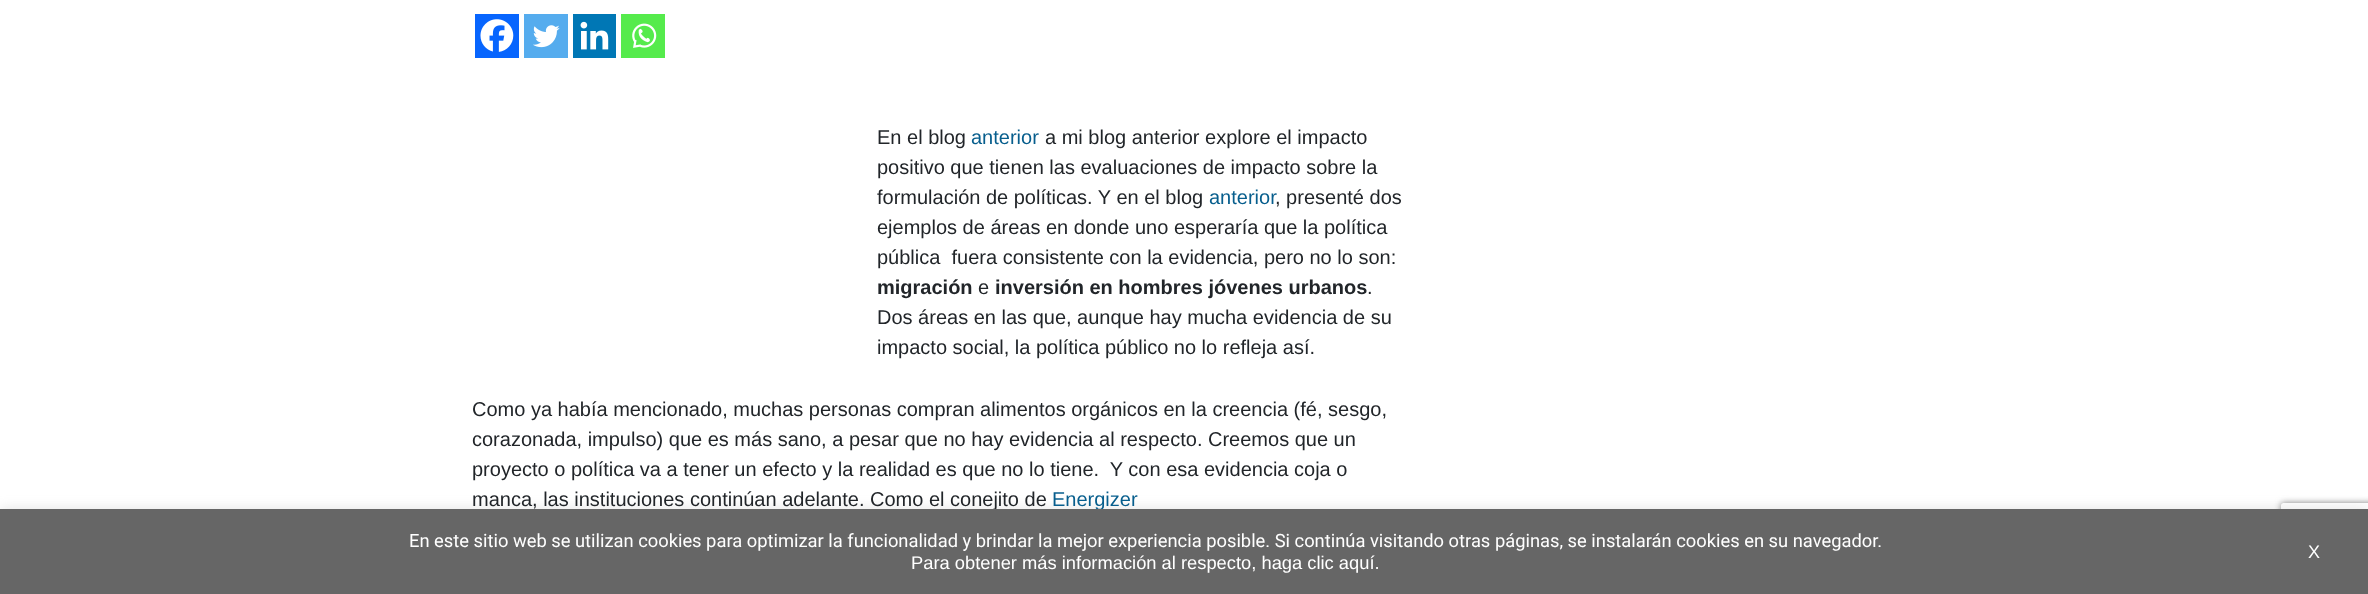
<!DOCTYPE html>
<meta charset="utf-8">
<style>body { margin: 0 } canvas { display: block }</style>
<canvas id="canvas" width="2368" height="594"></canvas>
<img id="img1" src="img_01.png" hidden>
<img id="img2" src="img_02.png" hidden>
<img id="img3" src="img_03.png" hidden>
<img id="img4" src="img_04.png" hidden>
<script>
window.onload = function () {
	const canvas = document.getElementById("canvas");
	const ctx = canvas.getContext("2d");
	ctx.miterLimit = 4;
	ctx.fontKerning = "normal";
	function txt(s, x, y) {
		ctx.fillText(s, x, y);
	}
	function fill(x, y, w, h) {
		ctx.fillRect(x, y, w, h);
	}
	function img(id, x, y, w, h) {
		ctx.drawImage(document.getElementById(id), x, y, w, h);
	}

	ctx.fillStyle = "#FFFFFF";
	fill(0, 0, 2368, 594);
	ctx.fillStyle = "#0765FE";
	fill(475, 14, 44, 44);
	img("img1", 480, 19, 34, 33);
	ctx.fillStyle = "#55ACEE";
	fill(524, 14, 44, 44);
	img("img2", 533, 25, 27, 23);
	ctx.fillStyle = "#0077B5";
	fill(573, 14, 43, 44);
	img("img3", 580, 21, 29, 29);
	ctx.fillStyle = "#55EB4C";
	fill(621, 14, 44, 44);
	img("img4", 632, 23, 25, 25);
	ctx.save();
	ctx.beginPath();
	ctx.moveTo(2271, 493);
	ctx.lineTo(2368, 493);
	ctx.lineTo(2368, 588);
	ctx.lineTo(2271, 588);
	ctx.closePath();
	ctx.moveTo(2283.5, 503);
	ctx.lineTo(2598.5, 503);
	ctx.bezierCurveTo(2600, 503, 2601, 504, 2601, 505.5);
	ctx.lineTo(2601, 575.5);
	ctx.bezierCurveTo(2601, 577, 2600, 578, 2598.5, 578);
	ctx.lineTo(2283.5, 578);
	ctx.bezierCurveTo(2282, 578, 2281, 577, 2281, 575.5);
	ctx.lineTo(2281, 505.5);
	ctx.bezierCurveTo(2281, 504, 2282, 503, 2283.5, 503);
	ctx.closePath();
	ctx.clip("evenodd");
	ctx.fillStyle = "#808080";
	ctx.filter = "blur(3px)";
	ctx.beginPath();
	ctx.roundRect(2281, 503, 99, 75, 2.5);
	ctx.fill();
	ctx.filter = "none";
	ctx.restore();
	ctx.fillStyle = "rgba(172, 171, 171, 0.3)";
	ctx.filter = "blur(6px)";
	ctx.beginPath();
	ctx.rect(0, 508, 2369, 86);
	ctx.fill();
	ctx.filter = "none";
	ctx.font = "20px Liberation Sans";
	ctx.fillStyle = "#212529";
	txt("En el blog", 877, 144);
	ctx.fillStyle = "#075E8D";
	txt("anterior", 971, 144);
	ctx.fillStyle = "#212529";
	txt("a mi blog anterior explore el impacto", 1045, 144);
	txt("positivo que tienen las evaluaciones de impacto sobre la", 877, 174);
	txt("formulación de políticas. Y en el blog", 877, 204);
	ctx.fillStyle = "#075E8D";
	txt("anterior", 1209, 204);
	ctx.fillStyle = "#212529";
	txt(", presenté dos", 1275, 204);
	txt("ejemplos de áreas en donde uno esperaría que la política", 877, 234);
	txt("pública  fuera consistente con la evidencia, pero no lo son:", 877, 264);
	ctx.font = "bold 20px Liberation Sans";
	txt("migración", 877, 294);
	ctx.font = "20px Liberation Sans";
	txt("e", 978, 294);
	ctx.font = "bold 20px Liberation Sans";
	txt("inversión en hombres jóvenes urbanos", 995, 294);
	ctx.font = "20px Liberation Sans";
	txt(".", 1367, 294);
	txt("Dos áreas en las que, aunque hay mucha evidencia de su", 877, 324);
	txt("impacto social, la política público no lo refleja así.", 877, 354);
	txt("Como ya había mencionado, muchas personas compran alimentos orgánicos en la creencia (fé, sesgo,", 472, 416);
	txt("corazonada, impulso) que es más sano, a pesar que no hay evidencia al respecto. Creemos que un", 472, 446);
	txt("proyecto o política va a tener un efecto y la realidad es que no lo tiene.  Y con esa evidencia coja o", 472, 476);
	txt("manca, las instituciones continúan adelante. Como el conejito de", 472, 506);
	ctx.fillStyle = "#075E8D";
	txt("Energizer", 1052, 506);
	ctx.fillStyle = "#666666";
	fill(0, 509, 2368, 85);
	ctx.font = "18.33px Roboto";
	ctx.fillStyle = "#FFFFFF";
	txt("En este sitio web se utilizan cookies para optimizar la funcionalidad y brindar la mejor experiencia posible. Si continúa visitando otras páginas, se instalarán cookies en su navegador.", 409, 547);
	ctx.font = "18.33px Liberation Sans";
	txt("Para obtener más información al respecto, haga clic aquí.", 911, 569);
	ctx.font = "18px Liberation Sans";
	txt("X", 2308, 558);
};
</script>
